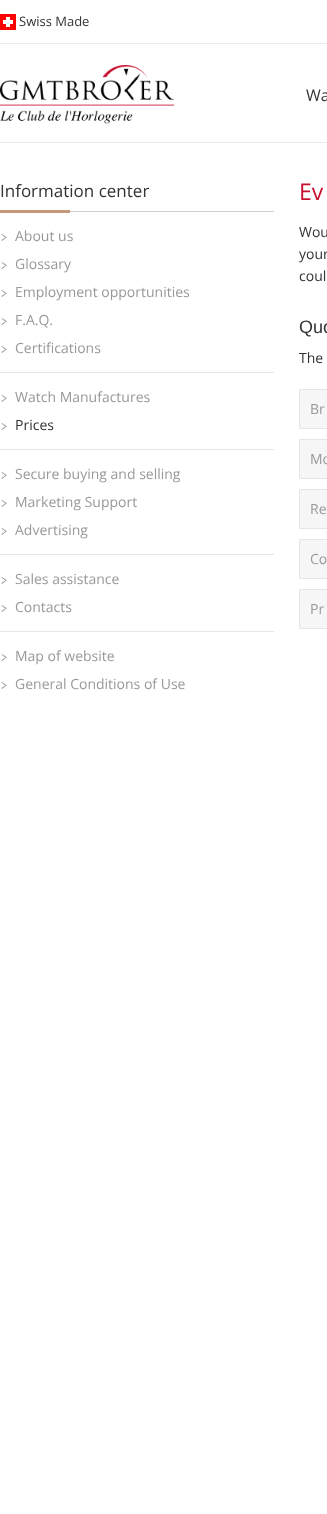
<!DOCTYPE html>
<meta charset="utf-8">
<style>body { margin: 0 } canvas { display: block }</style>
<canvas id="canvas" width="327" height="1514"></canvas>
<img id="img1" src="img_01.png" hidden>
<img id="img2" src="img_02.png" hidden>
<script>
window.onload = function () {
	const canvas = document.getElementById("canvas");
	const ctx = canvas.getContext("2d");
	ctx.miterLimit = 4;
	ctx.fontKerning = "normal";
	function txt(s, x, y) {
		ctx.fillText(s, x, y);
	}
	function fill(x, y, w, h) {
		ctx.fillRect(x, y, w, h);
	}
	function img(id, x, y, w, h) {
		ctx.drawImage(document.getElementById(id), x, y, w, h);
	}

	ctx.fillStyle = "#FFFFFF";
	fill(0, 0, 327, 1514);
	ctx.fillStyle = "#EBEBEB";
	fill(0, 43, 327, 1);
	img("img1", 0, 14, 16, 16);
	fill(0, 142, 327, 1);
	img("img2", 0, 65, 174, 59);
	ctx.fillStyle = "#CCCCCC";
	fill(70, 211, 204, 1);
	ctx.fillStyle = "#C4997A";
	fill(0, 210, 70, 3);
	ctx.fillStyle = "#999999";
	ctx.beginPath();
	ctx.moveTo(2, 234);
	ctx.lineTo(6.5, 237);
	ctx.lineTo(6, 238);
	ctx.lineTo(1.5, 234.5);
	ctx.closePath();
	ctx.fill();
	ctx.beginPath();
	ctx.moveTo(1.5, 240);
	ctx.lineTo(6, 237);
	ctx.lineTo(6.5, 237.5);
	ctx.lineTo(2, 241);
	ctx.closePath();
	ctx.fill();
	ctx.beginPath();
	ctx.moveTo(2, 262);
	ctx.lineTo(6.5, 265);
	ctx.lineTo(6, 266);
	ctx.lineTo(1.5, 262.5);
	ctx.closePath();
	ctx.fill();
	ctx.beginPath();
	ctx.moveTo(1.5, 268);
	ctx.lineTo(6, 265);
	ctx.lineTo(6.5, 265.5);
	ctx.lineTo(2, 269);
	ctx.closePath();
	ctx.fill();
	ctx.beginPath();
	ctx.moveTo(2, 290);
	ctx.lineTo(6.5, 293);
	ctx.lineTo(6, 294);
	ctx.lineTo(1.5, 290.5);
	ctx.closePath();
	ctx.fill();
	ctx.beginPath();
	ctx.moveTo(1.5, 296);
	ctx.lineTo(6, 293);
	ctx.lineTo(6.5, 293.5);
	ctx.lineTo(2, 297);
	ctx.closePath();
	ctx.fill();
	ctx.beginPath();
	ctx.moveTo(2, 318);
	ctx.lineTo(6.5, 321);
	ctx.lineTo(6, 322);
	ctx.lineTo(1.5, 318.5);
	ctx.closePath();
	ctx.fill();
	ctx.beginPath();
	ctx.moveTo(1.5, 324);
	ctx.lineTo(6, 321);
	ctx.lineTo(6.5, 321.5);
	ctx.lineTo(2, 325);
	ctx.closePath();
	ctx.fill();
	ctx.beginPath();
	ctx.moveTo(2, 346);
	ctx.lineTo(6.5, 349);
	ctx.lineTo(6, 350);
	ctx.lineTo(1.5, 346.5);
	ctx.closePath();
	ctx.fill();
	ctx.beginPath();
	ctx.moveTo(1.5, 352);
	ctx.lineTo(6, 349);
	ctx.lineTo(6.5, 349.5);
	ctx.lineTo(2, 353);
	ctx.closePath();
	ctx.fill();
	ctx.fillStyle = "#E7E5E5";
	fill(0, 372, 274, 1);
	ctx.fillStyle = "#999999";
	ctx.beginPath();
	ctx.moveTo(2, 395);
	ctx.lineTo(6.5, 398);
	ctx.lineTo(6, 399);
	ctx.lineTo(1.5, 395.5);
	ctx.closePath();
	ctx.fill();
	ctx.beginPath();
	ctx.moveTo(1.5, 401);
	ctx.lineTo(6, 398);
	ctx.lineTo(6.5, 398.5);
	ctx.lineTo(2, 402);
	ctx.closePath();
	ctx.fill();
	ctx.beginPath();
	ctx.moveTo(2, 423);
	ctx.lineTo(6.5, 426);
	ctx.lineTo(6, 427);
	ctx.lineTo(1.5, 423.5);
	ctx.closePath();
	ctx.fill();
	ctx.beginPath();
	ctx.moveTo(1.5, 429);
	ctx.lineTo(6, 426);
	ctx.lineTo(6.5, 426.5);
	ctx.lineTo(2, 430);
	ctx.closePath();
	ctx.fill();
	ctx.fillStyle = "#E7E5E5";
	fill(0, 449, 274, 1);
	ctx.fillStyle = "#999999";
	ctx.beginPath();
	ctx.moveTo(2, 472);
	ctx.lineTo(6.5, 475);
	ctx.lineTo(6, 476);
	ctx.lineTo(1.5, 472.5);
	ctx.closePath();
	ctx.fill();
	ctx.beginPath();
	ctx.moveTo(1.5, 478);
	ctx.lineTo(6, 475);
	ctx.lineTo(6.5, 475.5);
	ctx.lineTo(2, 479);
	ctx.closePath();
	ctx.fill();
	ctx.beginPath();
	ctx.moveTo(2, 500);
	ctx.lineTo(6.5, 503);
	ctx.lineTo(6, 504);
	ctx.lineTo(1.5, 500.5);
	ctx.closePath();
	ctx.fill();
	ctx.beginPath();
	ctx.moveTo(1.5, 506);
	ctx.lineTo(6, 503);
	ctx.lineTo(6.5, 503.5);
	ctx.lineTo(2, 507);
	ctx.closePath();
	ctx.fill();
	ctx.beginPath();
	ctx.moveTo(2, 528);
	ctx.lineTo(6.5, 531);
	ctx.lineTo(6, 532);
	ctx.lineTo(1.5, 528.5);
	ctx.closePath();
	ctx.fill();
	ctx.beginPath();
	ctx.moveTo(1.5, 534);
	ctx.lineTo(6, 531);
	ctx.lineTo(6.5, 531.5);
	ctx.lineTo(2, 535);
	ctx.closePath();
	ctx.fill();
	ctx.fillStyle = "#E7E5E5";
	fill(0, 554, 274, 1);
	ctx.fillStyle = "#999999";
	ctx.beginPath();
	ctx.moveTo(2, 577);
	ctx.lineTo(6.5, 580);
	ctx.lineTo(6, 581);
	ctx.lineTo(1.5, 577.5);
	ctx.closePath();
	ctx.fill();
	ctx.beginPath();
	ctx.moveTo(1.5, 583);
	ctx.lineTo(6, 580);
	ctx.lineTo(6.5, 580.5);
	ctx.lineTo(2, 584);
	ctx.closePath();
	ctx.fill();
	ctx.beginPath();
	ctx.moveTo(2, 605);
	ctx.lineTo(6.5, 608);
	ctx.lineTo(6, 609);
	ctx.lineTo(1.5, 605.5);
	ctx.closePath();
	ctx.fill();
	ctx.beginPath();
	ctx.moveTo(1.5, 611);
	ctx.lineTo(6, 608);
	ctx.lineTo(6.5, 608.5);
	ctx.lineTo(2, 612);
	ctx.closePath();
	ctx.fill();
	ctx.fillStyle = "#E7E5E5";
	fill(0, 631, 274, 1);
	ctx.fillStyle = "#999999";
	ctx.beginPath();
	ctx.moveTo(2, 654);
	ctx.lineTo(6.5, 657);
	ctx.lineTo(6, 658);
	ctx.lineTo(1.5, 654.5);
	ctx.closePath();
	ctx.fill();
	ctx.beginPath();
	ctx.moveTo(1.5, 660);
	ctx.lineTo(6, 657);
	ctx.lineTo(6.5, 657.5);
	ctx.lineTo(2, 661);
	ctx.closePath();
	ctx.fill();
	ctx.beginPath();
	ctx.moveTo(2, 682);
	ctx.lineTo(6.5, 685);
	ctx.lineTo(6, 686);
	ctx.lineTo(1.5, 682.5);
	ctx.closePath();
	ctx.fill();
	ctx.beginPath();
	ctx.moveTo(1.5, 688);
	ctx.lineTo(6, 685);
	ctx.lineTo(6.5, 685.5);
	ctx.lineTo(2, 689);
	ctx.closePath();
	ctx.fill();
	ctx.fillStyle = "#F7F6F6";
	ctx.beginPath();
	ctx.rect(299.5, 389.5, 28, 39);
	ctx.fill();
	ctx.strokeStyle = "#E7E5E5";
	ctx.stroke();
	ctx.beginPath();
	ctx.rect(299.5, 439.5, 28, 39);
	ctx.fill();
	ctx.stroke();
	ctx.beginPath();
	ctx.rect(299.5, 489.5, 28, 39);
	ctx.fill();
	ctx.stroke();
	ctx.beginPath();
	ctx.rect(299.5, 539.5, 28, 39);
	ctx.fill();
	ctx.stroke();
	ctx.beginPath();
	ctx.rect(299.5, 589.5, 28, 39);
	ctx.fill();
	ctx.stroke();
	ctx.font = "13px Open Sans";
	ctx.fillStyle = "#333333";
	txt("Swiss Made", 19, 26);
	ctx.font = "16px Open Sans";
	txt("Wa", 306, 101);
	ctx.font = "17px Open Sans";
	txt("Information center", 0, 197);
	ctx.font = "14px Open Sans";
	ctx.fillStyle = "#999999";
	txt("About us", 15, 241);
	txt("Glossary", 15, 269);
	txt("Employment opportunities", 15, 297);
	txt("F.A.Q.", 15, 325);
	txt("Certifications", 15, 353);
	txt("Watch Manufactures", 15, 402);
	ctx.fillStyle = "#333333";
	txt("Prices", 15, 430);
	ctx.fillStyle = "#999999";
	txt("Secure buying and selling", 15, 479);
	txt("Marketing Support", 15, 507);
	txt("Advertising", 15, 535);
	txt("Sales assistance", 15, 584);
	txt("Contacts", 15, 612);
	txt("Map of website", 15, 661);
	txt("General Conditions of Use", 15, 689);
	ctx.font = "23px Open Sans";
	ctx.fillStyle = "#C71131";
	txt("Ev", 299, 200);
	ctx.font = "14px Open Sans";
	ctx.fillStyle = "#333333";
	txt("Wou", 299, 237);
	txt("your", 299, 259);
	txt("coul", 299, 281);
	ctx.font = "18px Liberation Sans";
	txt("Quo", 299, 333);
	ctx.font = "14px Open Sans";
	txt("The", 299, 363);
	ctx.fillStyle = "#999999";
	txt("Br", 310, 414);
	txt("Mo", 310, 464);
	txt("Re", 310, 514);
	txt("Co", 310, 564);
	txt("Pr", 310, 614);
};
</script>
